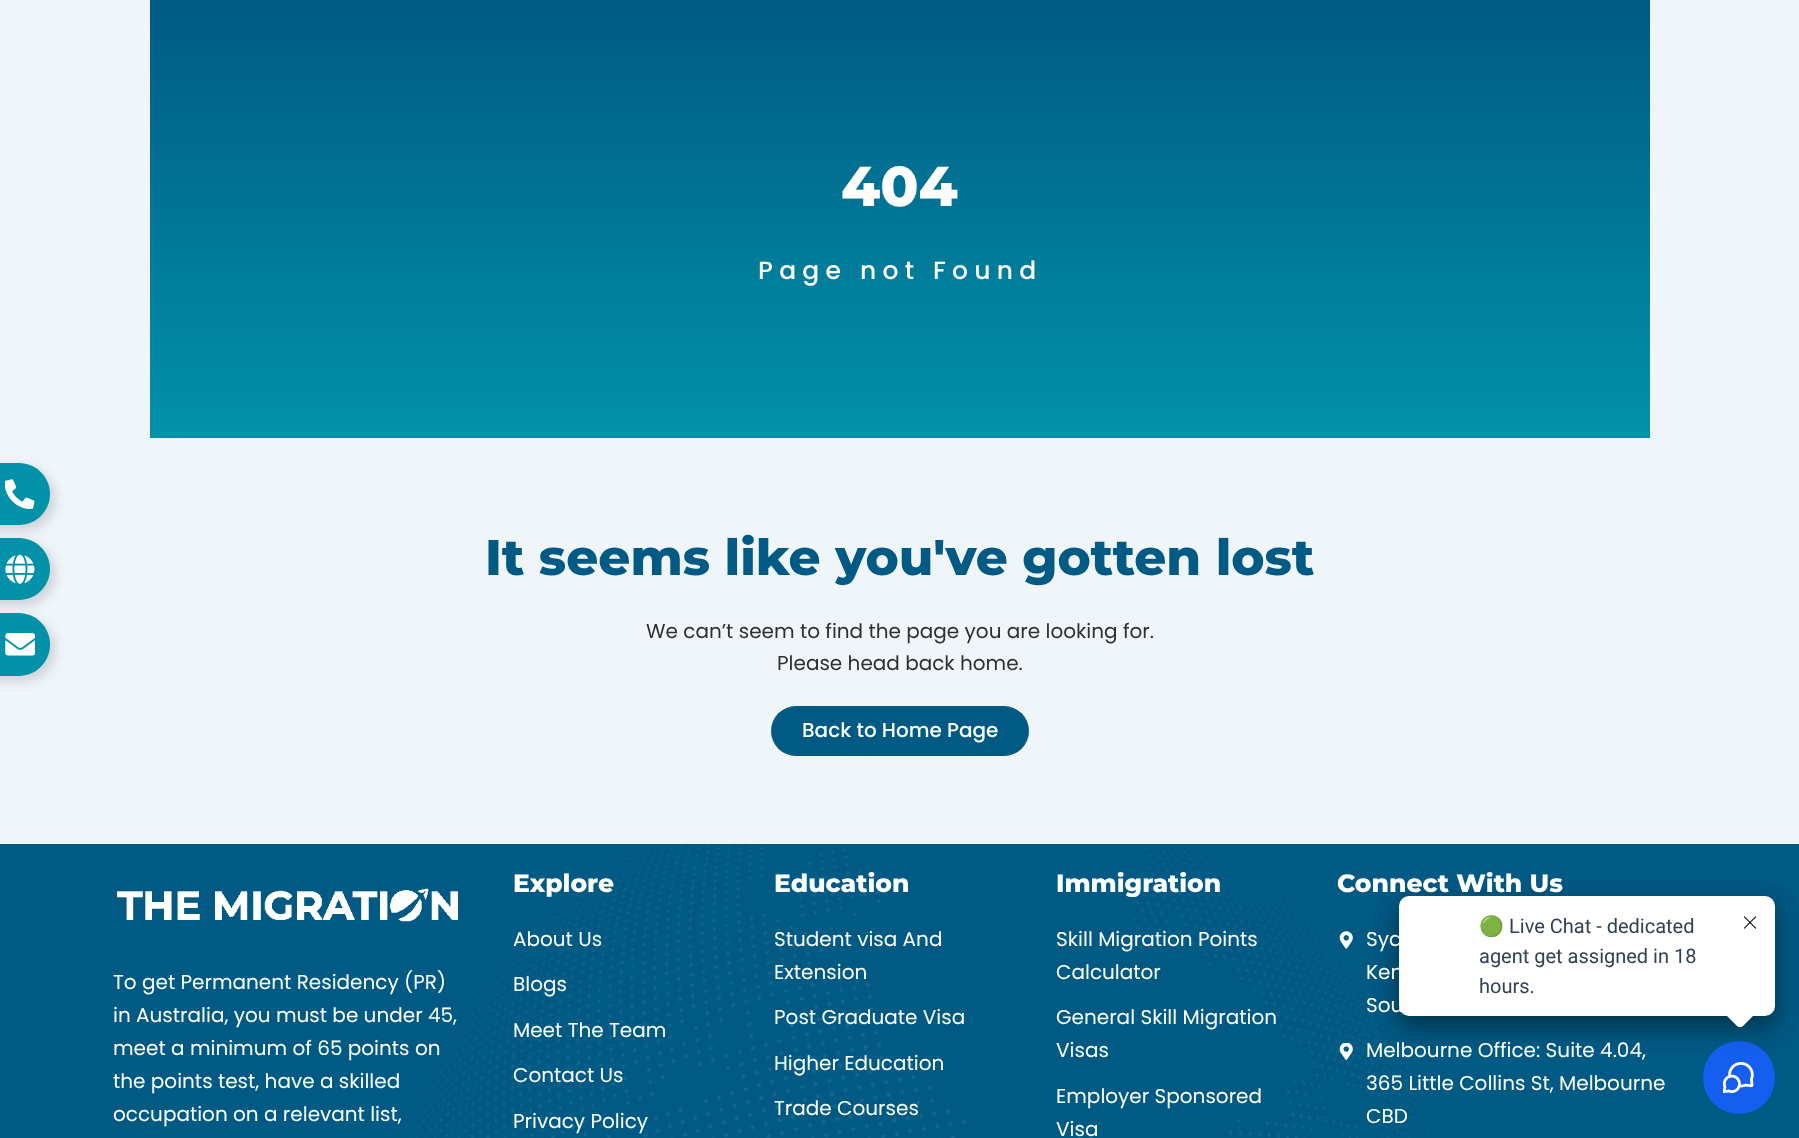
<!DOCTYPE html>
<meta charset="utf-8">
<style>body { margin: 0 } canvas { display: block }</style>
<canvas id="canvas" width="1799" height="1138"></canvas>
<img id="img1" src="img_01.png" hidden>
<img id="img2" src="img_02.png" hidden>
<img id="img3" src="img_03.png" hidden>
<img id="img4" src="img_04.png" hidden>
<img id="img5" src="img_05.png" hidden>
<img id="img6" src="img_06.png" hidden>
<img id="img7" src="img_07.png" hidden>
<img id="img8" src="img_09.png" hidden>
<img id="img9" src="img_08.png" hidden>
<script>
window.onload = function () {
	const canvas = document.getElementById("canvas");
	const ctx = canvas.getContext("2d");
	ctx.miterLimit = 4;
	ctx.fontKerning = "normal";
	function txt(s, x, y) {
		ctx.fillText(s, x, y);
	}
	function fill(x, y, w, h) {
		ctx.fillRect(x, y, w, h);
	}
	function round(x, y, w, h, r) {
		ctx.beginPath();
		ctx.roundRect(x, y, w, h, r);
		ctx.fill();
	}
	function img(id, x, y, w, h) {
		ctx.drawImage(document.getElementById(id), x, y, w, h);
	}
	let gradient;

	ctx.fillStyle = "#F0F5FA";
	fill(0, 0, 1799, 1138);
	ctx.fillStyle = "rgba(0, 0, 0, 0.15)";
	ctx.filter = "blur(6px)";
	ctx.beginPath();
	ctx.roundRect(-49, 468, 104, 62, 31);
	ctx.fill();
	ctx.filter = "none";
	ctx.fillStyle = "#0192A9";
	ctx.beginPath();
	ctx.moveTo(-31, 463);
	ctx.lineTo(19, 463);
	ctx.bezierCurveTo(36, 463, 50, 477, 50, 494);
	ctx.bezierCurveTo(50, 511, 36, 525, 19, 525);
	ctx.lineTo(-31, 525);
	ctx.closePath();
	ctx.fill();
	img("img1", 5, 479, 30, 30);
	ctx.fillStyle = "rgba(0, 0, 0, 0.15)";
	ctx.filter = "blur(6px)";
	ctx.beginPath();
	ctx.roundRect(-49, 543, 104, 62, 31);
	ctx.fill();
	ctx.filter = "none";
	ctx.fillStyle = "#0192A9";
	ctx.beginPath();
	ctx.moveTo(-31, 538);
	ctx.lineTo(19, 538);
	ctx.bezierCurveTo(36, 538, 50, 552, 50, 569);
	ctx.bezierCurveTo(50, 586, 36, 600, 19, 600);
	ctx.lineTo(-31, 600);
	ctx.closePath();
	ctx.fill();
	img("img2", 5, 554, 30, 30);
	ctx.fillStyle = "rgba(0, 0, 0, 0.15)";
	ctx.filter = "blur(6px)";
	ctx.beginPath();
	ctx.roundRect(-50, 618, 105, 63, 31.5);
	ctx.fill();
	ctx.filter = "none";
	ctx.fillStyle = "#0192A9";
	ctx.beginPath();
	ctx.moveTo(-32, 613);
	ctx.lineTo(18.5, 613);
	ctx.bezierCurveTo(36, 613, 50, 627, 50, 644.5);
	ctx.bezierCurveTo(50, 662, 36, 676, 18.5, 676);
	ctx.lineTo(-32, 676);
	ctx.closePath();
	ctx.fill();
	img("img3", 5, 633, 30, 23);
	gradient = ctx.createLinearGradient(900, 0, 900, 438);
	gradient.addColorStop(0, "#005A84");
	gradient.addColorStop(1, "#0192A9");
	ctx.fillStyle = gradient;
	fill(150, 0, 1500, 438);
	ctx.fillStyle = "#005A84";
	round(771, 706, 258, 50, 25);
	fill(0, 844, 1799, 294);
	img("img4", 404, 844, 1025, 294);
	img("img5", 117, 888, 341, 34);
	img("img6", 1339, 931, 14, 18);
	img("img7", 1339, 1043, 14, 17);
	ctx.fillStyle = "rgba(0, 0, 0, 0.24)";
	ctx.filter = "blur(12.5px)";
	ctx.beginPath();
	ctx.roundRect(1399, 906, 376, 120, 10);
	ctx.fill();
	ctx.filter = "none";
	ctx.fillStyle = "#155EEF";
	round(1703, 1041, 72, 73, 36);
	img("img8", 1723, 1062, 31, 31);
	ctx.fillStyle = "rgba(0, 0, 0, 0.24)";
	ctx.filter = "blur(12.5px)";
	ctx.beginPath();
	ctx.roundRect(1399, 906, 376, 120, 10);
	ctx.fill();
	ctx.filter = "none";
	ctx.fillStyle = "#FFFFFF";
	round(1399, 896, 376, 120, 10);
	ctx.beginPath();
	ctx.moveTo(1743.5, 997);
	ctx.lineTo(1754, 1007.5);
	ctx.bezierCurveTo(1756, 1009.5, 1756, 1013, 1754, 1015);
	ctx.lineTo(1743.5, 1025.5);
	ctx.bezierCurveTo(1741.5, 1027.5, 1738.5, 1027.5, 1736.5, 1025.5);
	ctx.lineTo(1726, 1015);
	ctx.bezierCurveTo(1724, 1013, 1724, 1009.5, 1726, 1007.5);
	ctx.lineTo(1736.5, 997);
	ctx.bezierCurveTo(1738.5, 995, 1741.5, 995, 1743.5, 997);
	ctx.closePath();
	ctx.fill();
	img("img9", 1744, 916, 12, 13);
	ctx.font = "800 56px Montserrat";
	txt("404", 841, 206);
	ctx.letterSpacing = "6.25px";
	ctx.font = "500 25px Poppins";
	txt("Page not Found", 758, 279);
	ctx.letterSpacing = "0px";
	ctx.font = "800 50px Montserrat";
	ctx.fillStyle = "#005A84";
	txt("It seems like you've gotten lost", 485, 575);
	ctx.font = "20px Poppins";
	ctx.fillStyle = "#302F2F";
	txt("We can’t seem to find the page you are looking for.", 646, 638);
	txt("Please head back home.", 777, 670);
	ctx.font = "500 20px Poppins";
	ctx.fillStyle = "#FFFFFF";
	txt("Back to Home Page", 802, 737);
	ctx.font = "20px Poppins";
	txt("To get Permanent Residency (PR)", 113, 989);
	txt("in Australia, you must be under 45,", 113, 1022);
	txt("meet a minimum of 65 points on", 113, 1055);
	txt("the points test, have a skilled", 113, 1088);
	txt("occupation on a relevant list,", 113, 1121);
	ctx.font = "800 25px Montserrat";
	txt("Explore", 513, 892);
	ctx.font = "20px Poppins";
	txt("About Us", 513, 946);
	txt("Blogs", 513, 991);
	txt("Meet The Team", 513, 1037);
	txt("Contact Us", 513, 1082);
	txt("Privacy Policy", 513, 1128);
	ctx.font = "800 25px Montserrat";
	txt("Education", 774, 892);
	ctx.font = "20px Poppins";
	txt("Student visa And", 774, 946);
	txt("Extension", 774, 979);
	txt("Post Graduate Visa", 774, 1024);
	txt("Higher Education", 774, 1070);
	txt("Trade Courses", 774, 1115);
	ctx.font = "800 25px Montserrat";
	txt("Immigration", 1056, 892);
	ctx.font = "20px Poppins";
	txt("Skill Migration Points", 1056, 946);
	txt("Calculator", 1056, 979);
	txt("General Skill Migration", 1056, 1024);
	txt("Visas", 1056, 1057);
	txt("Employer Sponsored", 1056, 1103);
	txt("Visa", 1056, 1136);
	ctx.font = "800 25px Montserrat";
	txt("Connect With Us", 1337, 892);
	ctx.font = "20px Poppins";
	txt("Syd", 1366, 946);
	txt("Ken", 1366, 979);
	txt("Sou", 1366, 1012);
	txt("Melbourne Office: Suite 4.04,", 1366, 1057);
	txt("365 Little Collins St, Melbourne", 1366, 1090);
	txt("CBD", 1366, 1123);
	ctx.font = "20px Noto Color Emoji";
	ctx.fillStyle = "#344054";
	txt("🟢", 1479, 933);
	ctx.font = "20px Roboto";
	txt("Live Chat - dedicated", 1509, 933);
	txt("agent get assigned in 18", 1479, 963);
	txt("hours.", 1479, 993);
};
</script>
